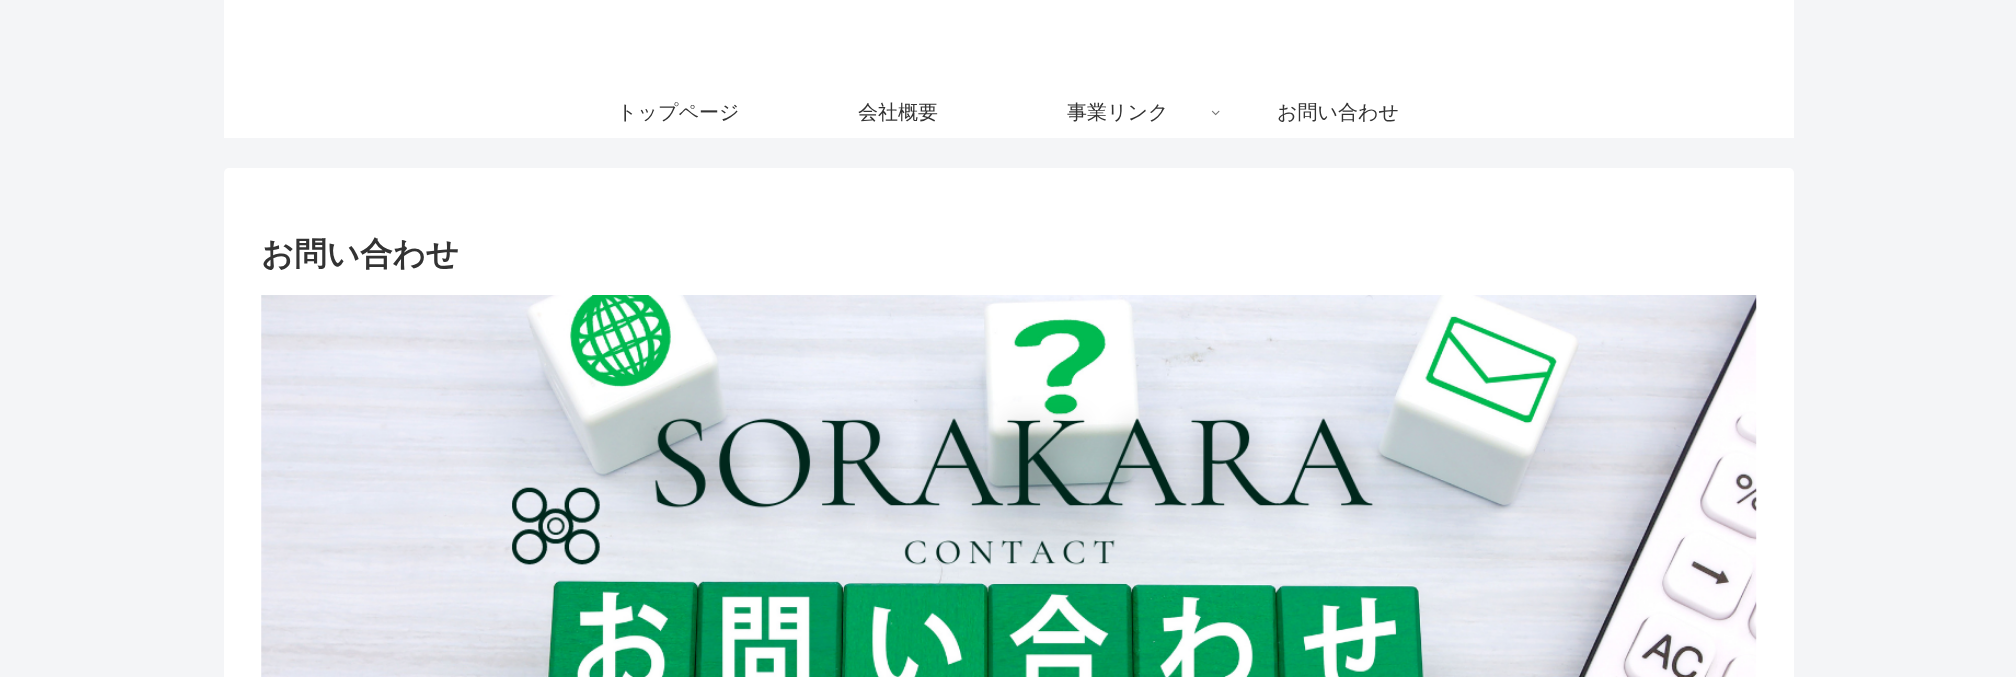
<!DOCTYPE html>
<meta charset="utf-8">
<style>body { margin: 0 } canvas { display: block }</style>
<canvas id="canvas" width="2016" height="677"></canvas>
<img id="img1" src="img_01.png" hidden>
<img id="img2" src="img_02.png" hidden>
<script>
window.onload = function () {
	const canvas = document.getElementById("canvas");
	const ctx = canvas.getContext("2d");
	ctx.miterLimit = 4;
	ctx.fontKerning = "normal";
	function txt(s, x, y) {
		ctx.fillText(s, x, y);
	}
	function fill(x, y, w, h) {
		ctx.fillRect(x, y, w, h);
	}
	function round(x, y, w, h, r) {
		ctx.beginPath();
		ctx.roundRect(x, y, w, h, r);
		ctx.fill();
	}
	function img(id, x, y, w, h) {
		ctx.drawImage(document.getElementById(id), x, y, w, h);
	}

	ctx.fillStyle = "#F4F5F7";
	fill(0, 0, 2016, 677);
	ctx.fillStyle = "#FFFFFF";
	fill(224, 0, 1570, 138);
	img("img1", 1211, 110, 9, 6);
	round(224, 168, 1570, 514, 5);
	img("img2", 261, 295, 1496, 382);
	ctx.font = "500 20px WenQuanYi Zen Hei";
	ctx.fillStyle = "#333333";
	txt("トップページ", 617, 119);
	txt("会社概要", 858, 119);
	txt("事業リンク", 1067, 119);
	txt("お問い合わせ", 1277, 119);
	ctx.font = "bold 32.5px WenQuanYi Zen Hei";
	txt("お問い合わせ", 261, 265);
};
</script>
